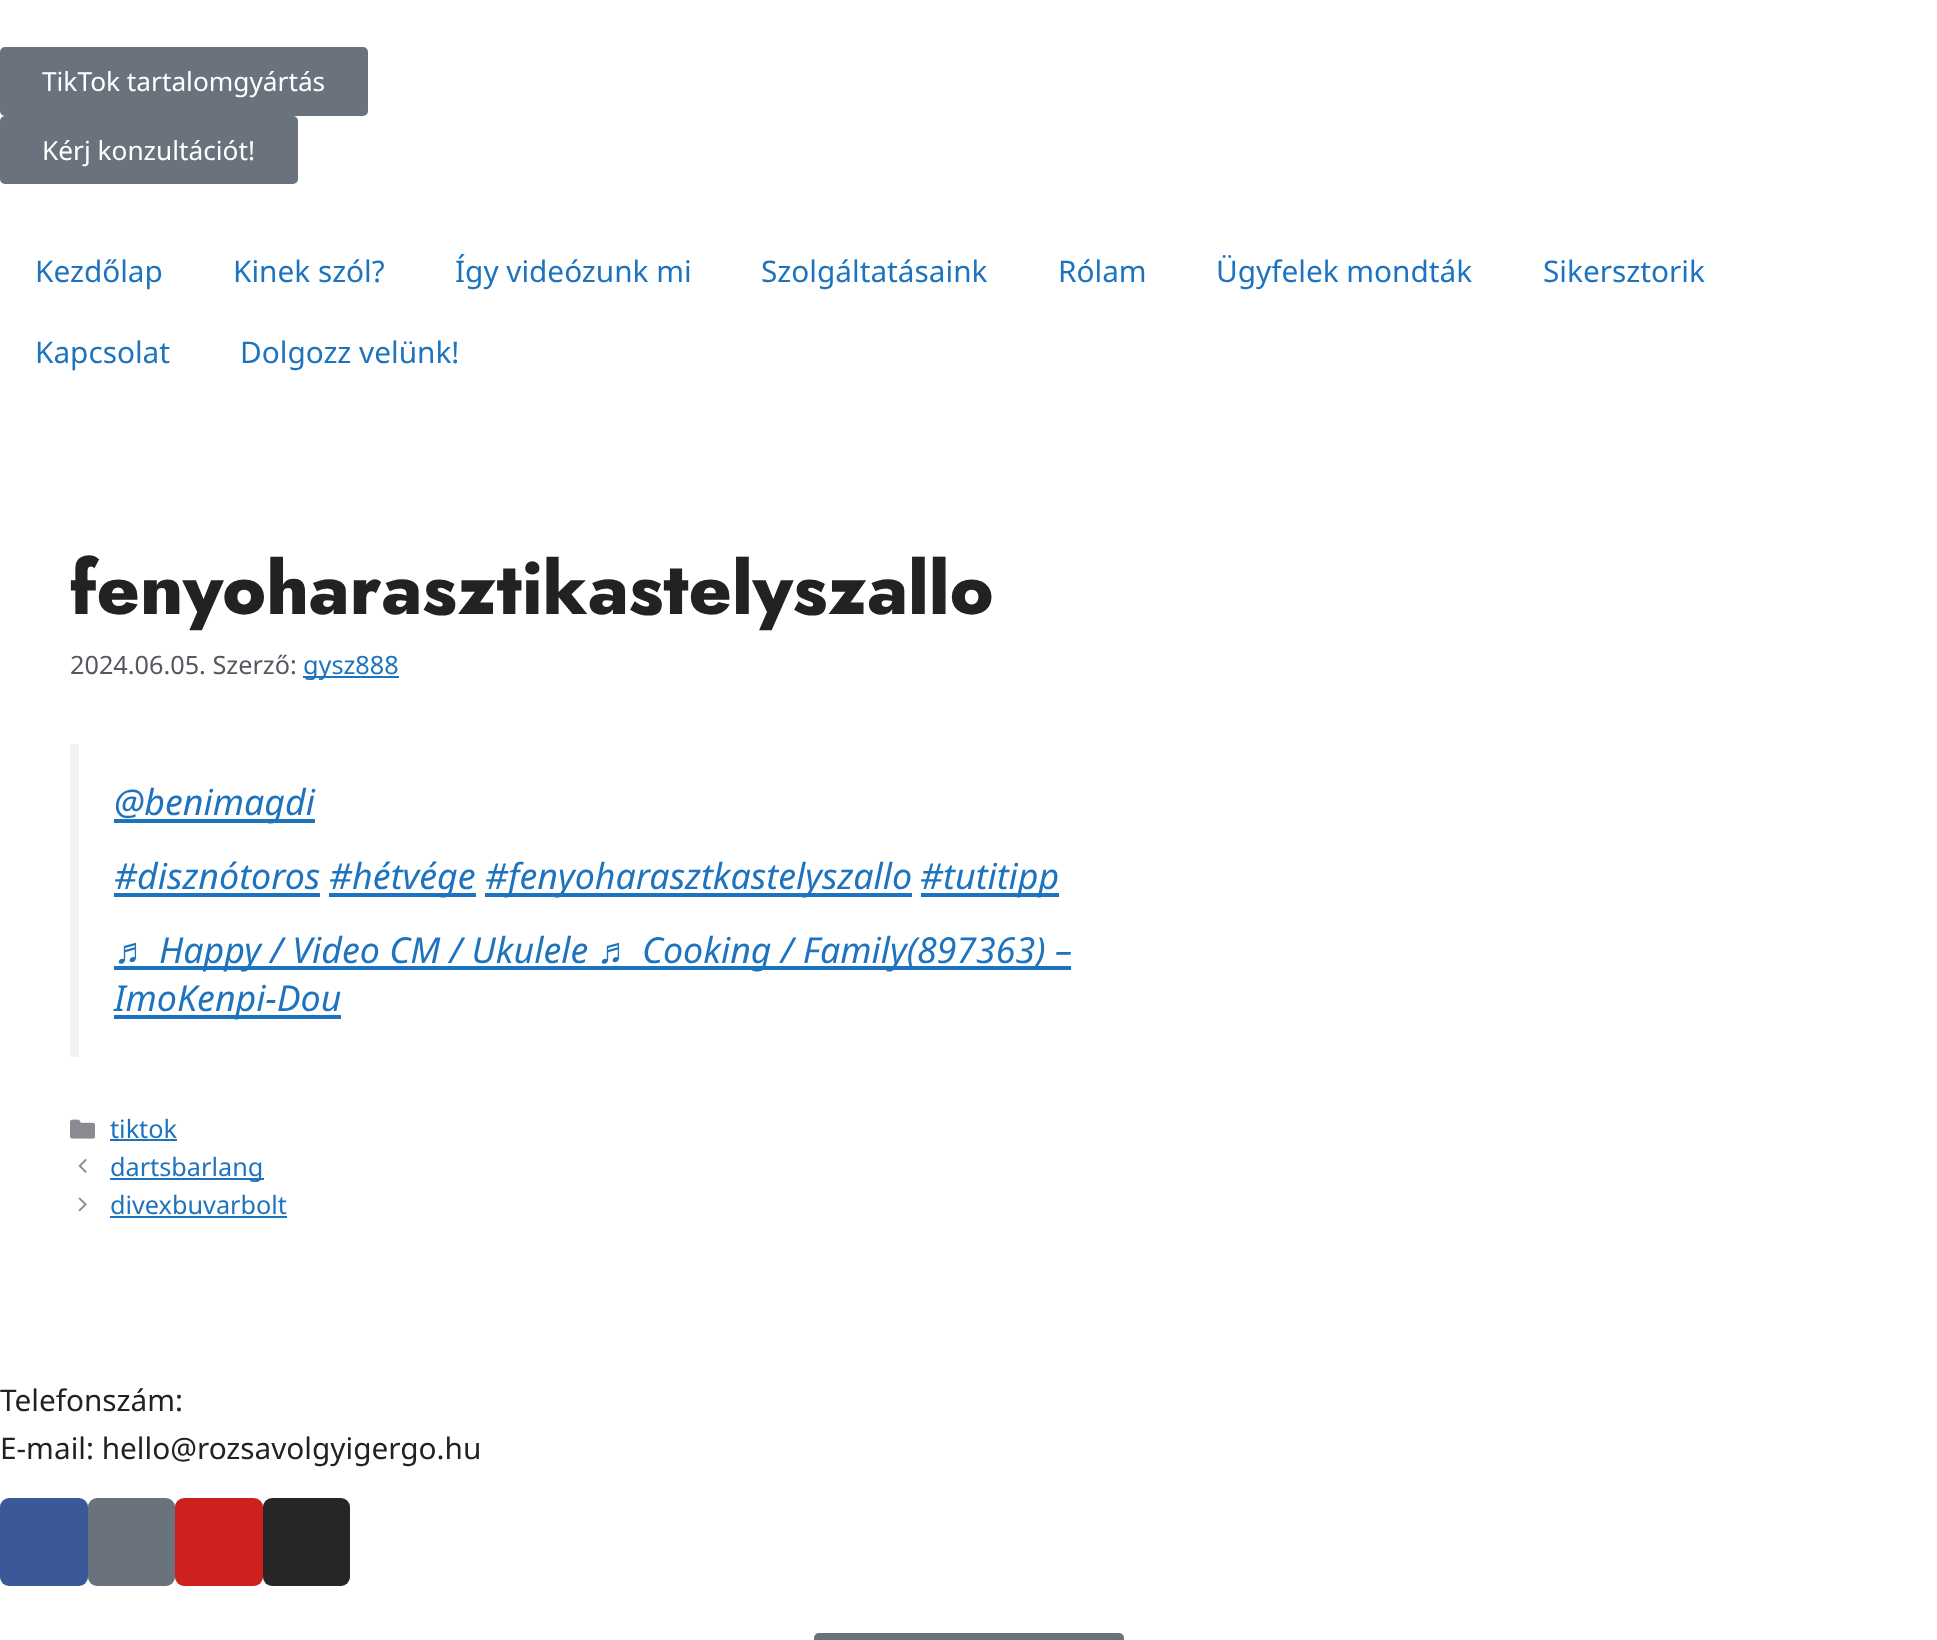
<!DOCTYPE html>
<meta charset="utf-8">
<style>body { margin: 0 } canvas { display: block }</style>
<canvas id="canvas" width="1937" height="1640"></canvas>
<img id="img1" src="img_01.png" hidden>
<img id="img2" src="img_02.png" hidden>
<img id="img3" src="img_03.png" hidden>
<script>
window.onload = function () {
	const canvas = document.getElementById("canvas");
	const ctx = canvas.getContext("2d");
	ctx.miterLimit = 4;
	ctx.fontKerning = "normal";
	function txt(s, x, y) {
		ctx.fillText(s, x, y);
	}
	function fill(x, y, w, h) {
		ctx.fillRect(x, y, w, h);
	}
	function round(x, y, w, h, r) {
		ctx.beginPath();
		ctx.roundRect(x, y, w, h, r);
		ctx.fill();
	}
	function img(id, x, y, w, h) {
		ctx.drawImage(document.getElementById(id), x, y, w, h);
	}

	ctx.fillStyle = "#FFFFFF";
	fill(0, 0, 1937, 1640);
	ctx.fillStyle = "#69727D";
	round(0, 47, 368, 69, 5);
	round(0, 116, 298, 68, 5);
	ctx.fillStyle = "#1E73BE";
	fill(303, 676, 96, 2);
	ctx.fillStyle = "#F2F2F2";
	fill(70, 744, 9, 313);
	ctx.fillStyle = "#1E73BE";
	fill(114, 819, 201, 4);
	fill(114, 893, 206, 4);
	fill(329, 893, 147, 4);
	fill(485, 893, 427, 4);
	fill(921, 893, 138, 4);
	fill(114, 966, 957, 4);
	fill(114, 1015, 227, 4);
	img("img1", 70, 1119, 25, 20);
	fill(110, 1139, 67, 2);
	img("img2", 78, 1159, 9, 14);
	fill(110, 1178, 154, 2);
	img("img3", 78, 1197, 9, 15);
	fill(110, 1216, 177, 2);
	ctx.fillStyle = "#3B5998";
	round(0, 1498, 88, 88, 9);
	ctx.fillStyle = "#69727D";
	round(88, 1498, 87, 88, 9);
	ctx.fillStyle = "#CD201F";
	round(175, 1498, 88, 88, 9);
	ctx.fillStyle = "#262626";
	round(263, 1498, 87, 88, 9);
	ctx.fillStyle = "#69727D";
	round(814, 1633, 310, 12, 5);
	ctx.font = "26.25px Noto Sans";
	ctx.fillStyle = "#FFFFFF";
	txt("TikTok tartalomgyártás", 42, 91);
	txt("Kérj konzultációt!", 42, 160);
	ctx.font = "29.75px Noto Sans";
	ctx.fillStyle = "#1E73BE";
	txt("Kezdőlap", 35, 282);
	txt("Kinek szól?", 233, 282);
	txt("Így videózunk mi", 455, 282);
	txt("Szolgáltatásaink", 761, 282);
	txt("Rólam", 1058, 282);
	txt("Ügyfelek mondták", 1216, 282);
	txt("Sikersztorik", 1543, 282);
	txt("Kapcsolat", 35, 363);
	txt("Dolgozz velünk!", 240, 363);
	ctx.font = "800 73.5px Jost";
	ctx.fillStyle = "#222222";
	txt("fenyoharasztikastelyszallo", 70, 614);
	ctx.font = "25.25px Noto Sans";
	ctx.fillStyle = "#575760";
	txt("2024.06.05. Szerző:", 70, 674);
	ctx.fillStyle = "#1E73BE";
	txt("gysz888", 303, 674);
	ctx.font = "italic 35.75px Noto Sans";
	txt("@benimagdi", 114, 815);
	txt("#disznótoros", 114, 889);
	txt("#hétvége", 329, 889);
	txt("#fenyoharasztkastelyszallo", 485, 889);
	txt("#tutitipp", 920, 889);
	ctx.font = "italic 35.75px Liberation Sans";
	txt("♬", 114, 963);
	ctx.font = "italic 35.75px Noto Sans";
	txt("Happy / Video CM / Ukulele", 159, 963);
	ctx.font = "italic 35.75px Liberation Sans";
	txt("♬", 597, 963);
	ctx.font = "italic 35.75px Noto Sans";
	txt("Cooking / Family(897363) –", 642, 963);
	txt("ImoKenpi-Dou", 114, 1011);
	ctx.font = "25.25px Noto Sans";
	txt("tiktok", 110, 1138);
	txt("dartsbarlang", 110, 1176);
	txt("divexbuvarbolt", 110, 1214);
	ctx.font = "29.75px Noto Sans";
	ctx.fillStyle = "#222222";
	txt("Telefonszám:", 0, 1411);
	txt("E-mail: hello@rozsavolgyigergo.hu", 0, 1459);
};
</script>
